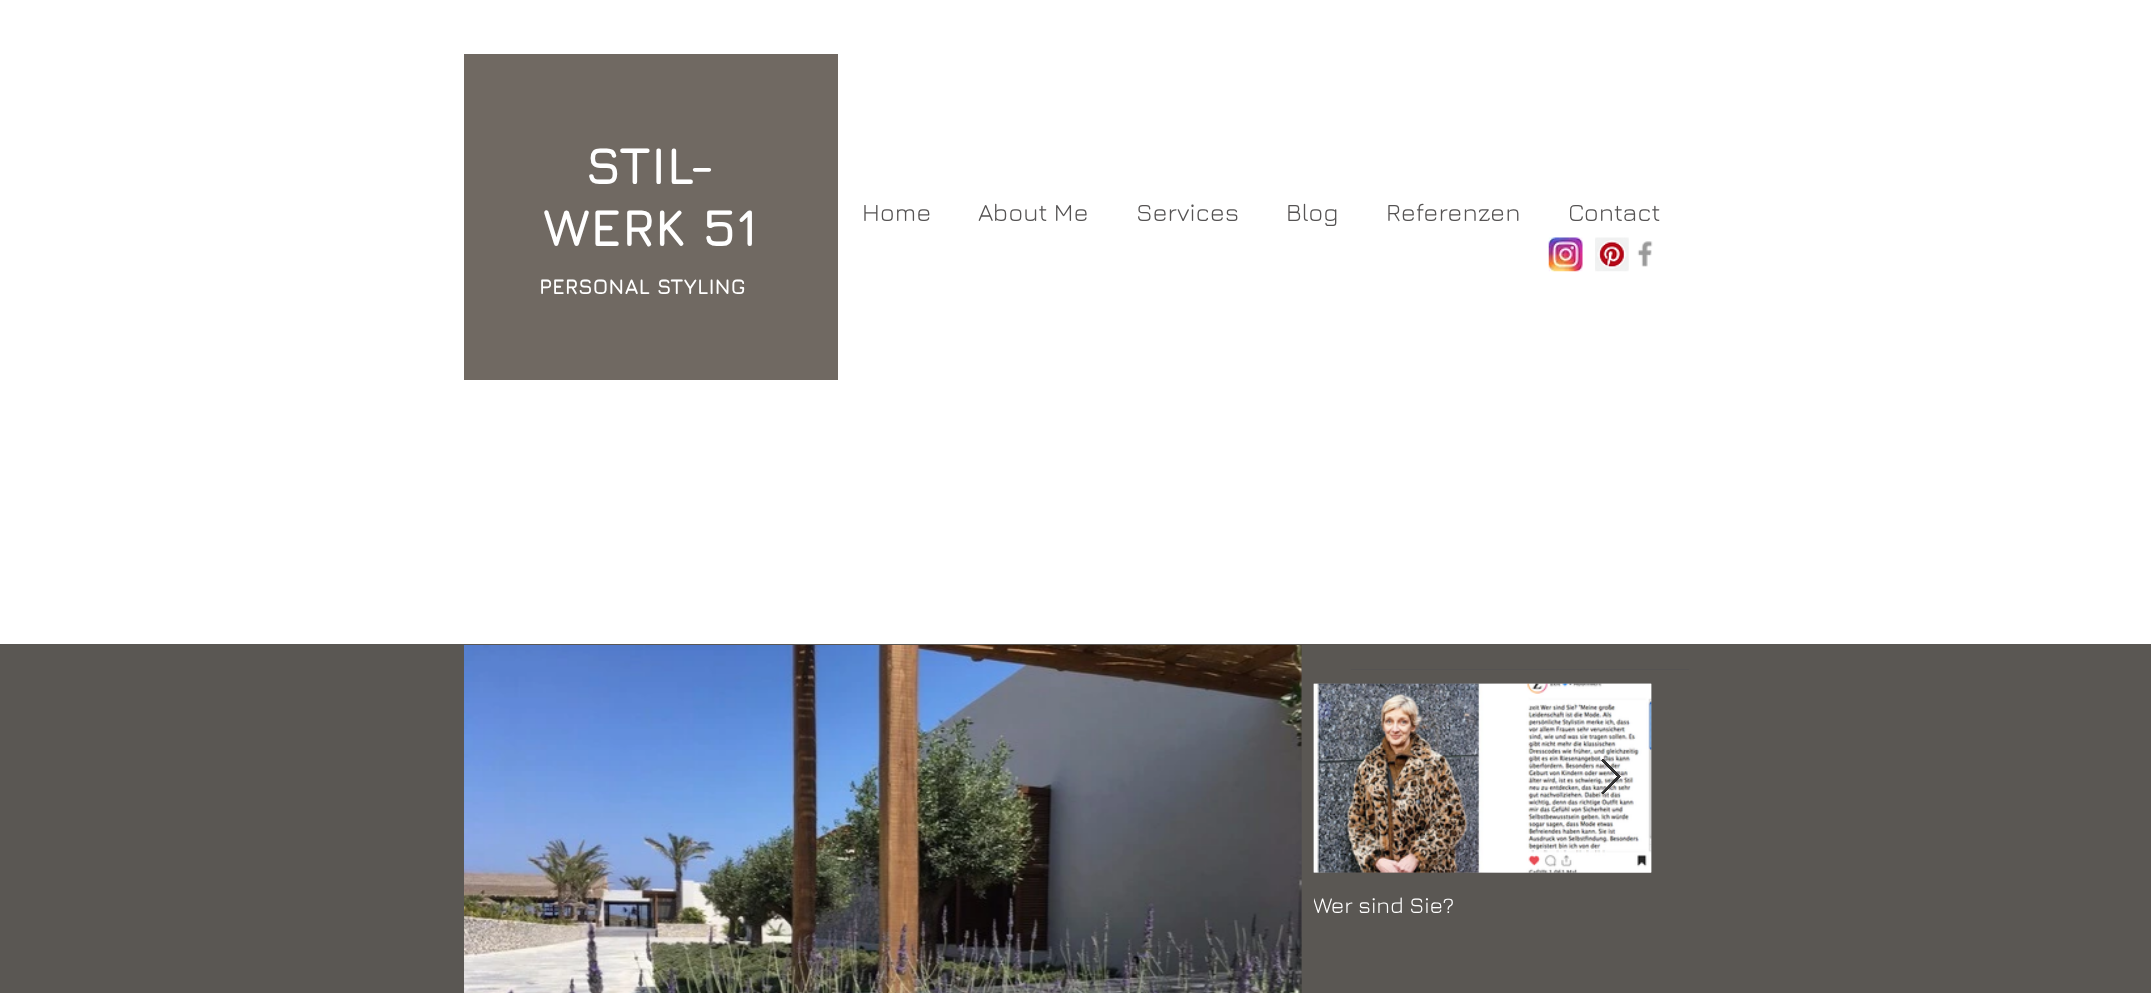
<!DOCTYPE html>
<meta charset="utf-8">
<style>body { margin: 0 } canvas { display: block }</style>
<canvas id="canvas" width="2151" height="993"></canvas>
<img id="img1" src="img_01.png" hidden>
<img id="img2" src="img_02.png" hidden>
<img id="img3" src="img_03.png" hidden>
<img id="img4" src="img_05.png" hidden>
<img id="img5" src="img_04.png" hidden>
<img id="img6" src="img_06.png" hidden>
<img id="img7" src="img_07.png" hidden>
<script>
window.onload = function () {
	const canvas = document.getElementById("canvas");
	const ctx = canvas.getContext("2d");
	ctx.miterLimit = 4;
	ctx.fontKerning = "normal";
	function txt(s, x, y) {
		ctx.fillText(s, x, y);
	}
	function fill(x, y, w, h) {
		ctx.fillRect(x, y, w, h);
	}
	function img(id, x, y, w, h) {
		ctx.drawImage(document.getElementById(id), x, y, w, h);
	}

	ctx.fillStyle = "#5A5753";
	fill(0, 0, 2151, 993);
	ctx.fillStyle = "#FFFFFF";
	fill(0, 0, 2151, 644);
	ctx.fillStyle = "#706962";
	fill(464, 54, 374, 326);
	img("img1", 1548, 237, 35, 35);
	img("img2", 1595, 237, 34, 35);
	img("img3", 1637, 241, 16, 26);
	img("img4", 1300, 645, 2, 348);
	img("img5", 464, 645, 838, 348);
	ctx.fillStyle = "#555353";
	fill(1351, 669, 338, 1);
	img("img6", 1313, 683, 339, 190);
	img("img7", 1313, 683, 339, 190);
	ctx.fillStyle = "rgba(34, 34, 34, 0.9)";
	ctx.beginPath();
	ctx.moveTo(1601.5, 760.5);
	ctx.lineTo(1603, 759);
	ctx.lineTo(1620.5, 776.5);
	ctx.lineTo(1603, 794);
	ctx.lineTo(1601.5, 793);
	ctx.lineTo(1617.5, 776.5);
	ctx.closePath();
	ctx.fill();
	ctx.strokeStyle = "rgba(34, 34, 34, 0.9)";
	ctx.stroke();
	ctx.font = "bold 52.5px Jura";
	ctx.fillStyle = "#FFFFFF";
	txt("STIL-", 585, 184);
	txt("WERK 51", 543, 246);
	ctx.font = "bold 21.25px Jura";
	txt("PERSONAL STYLING", 539, 294);
	ctx.font = "25px Jura";
	ctx.fillStyle = "#555353";
	txt("Home", 862, 221);
	txt("About Me", 978, 221);
	txt("Services", 1136, 221);
	txt("Blog", 1286, 221);
	txt("Referenzen", 1386, 221);
	txt("Contact", 1568, 221);
	ctx.save();
	ctx.beginPath();
	ctx.rect(1314, 893, 337, 26);
	ctx.clip();
	ctx.font = "22.5px Jura";
	ctx.fillStyle = "#FFFFFF";
	txt("Wer sind Sie?", 1313, 913);
	ctx.restore();
};
</script>
